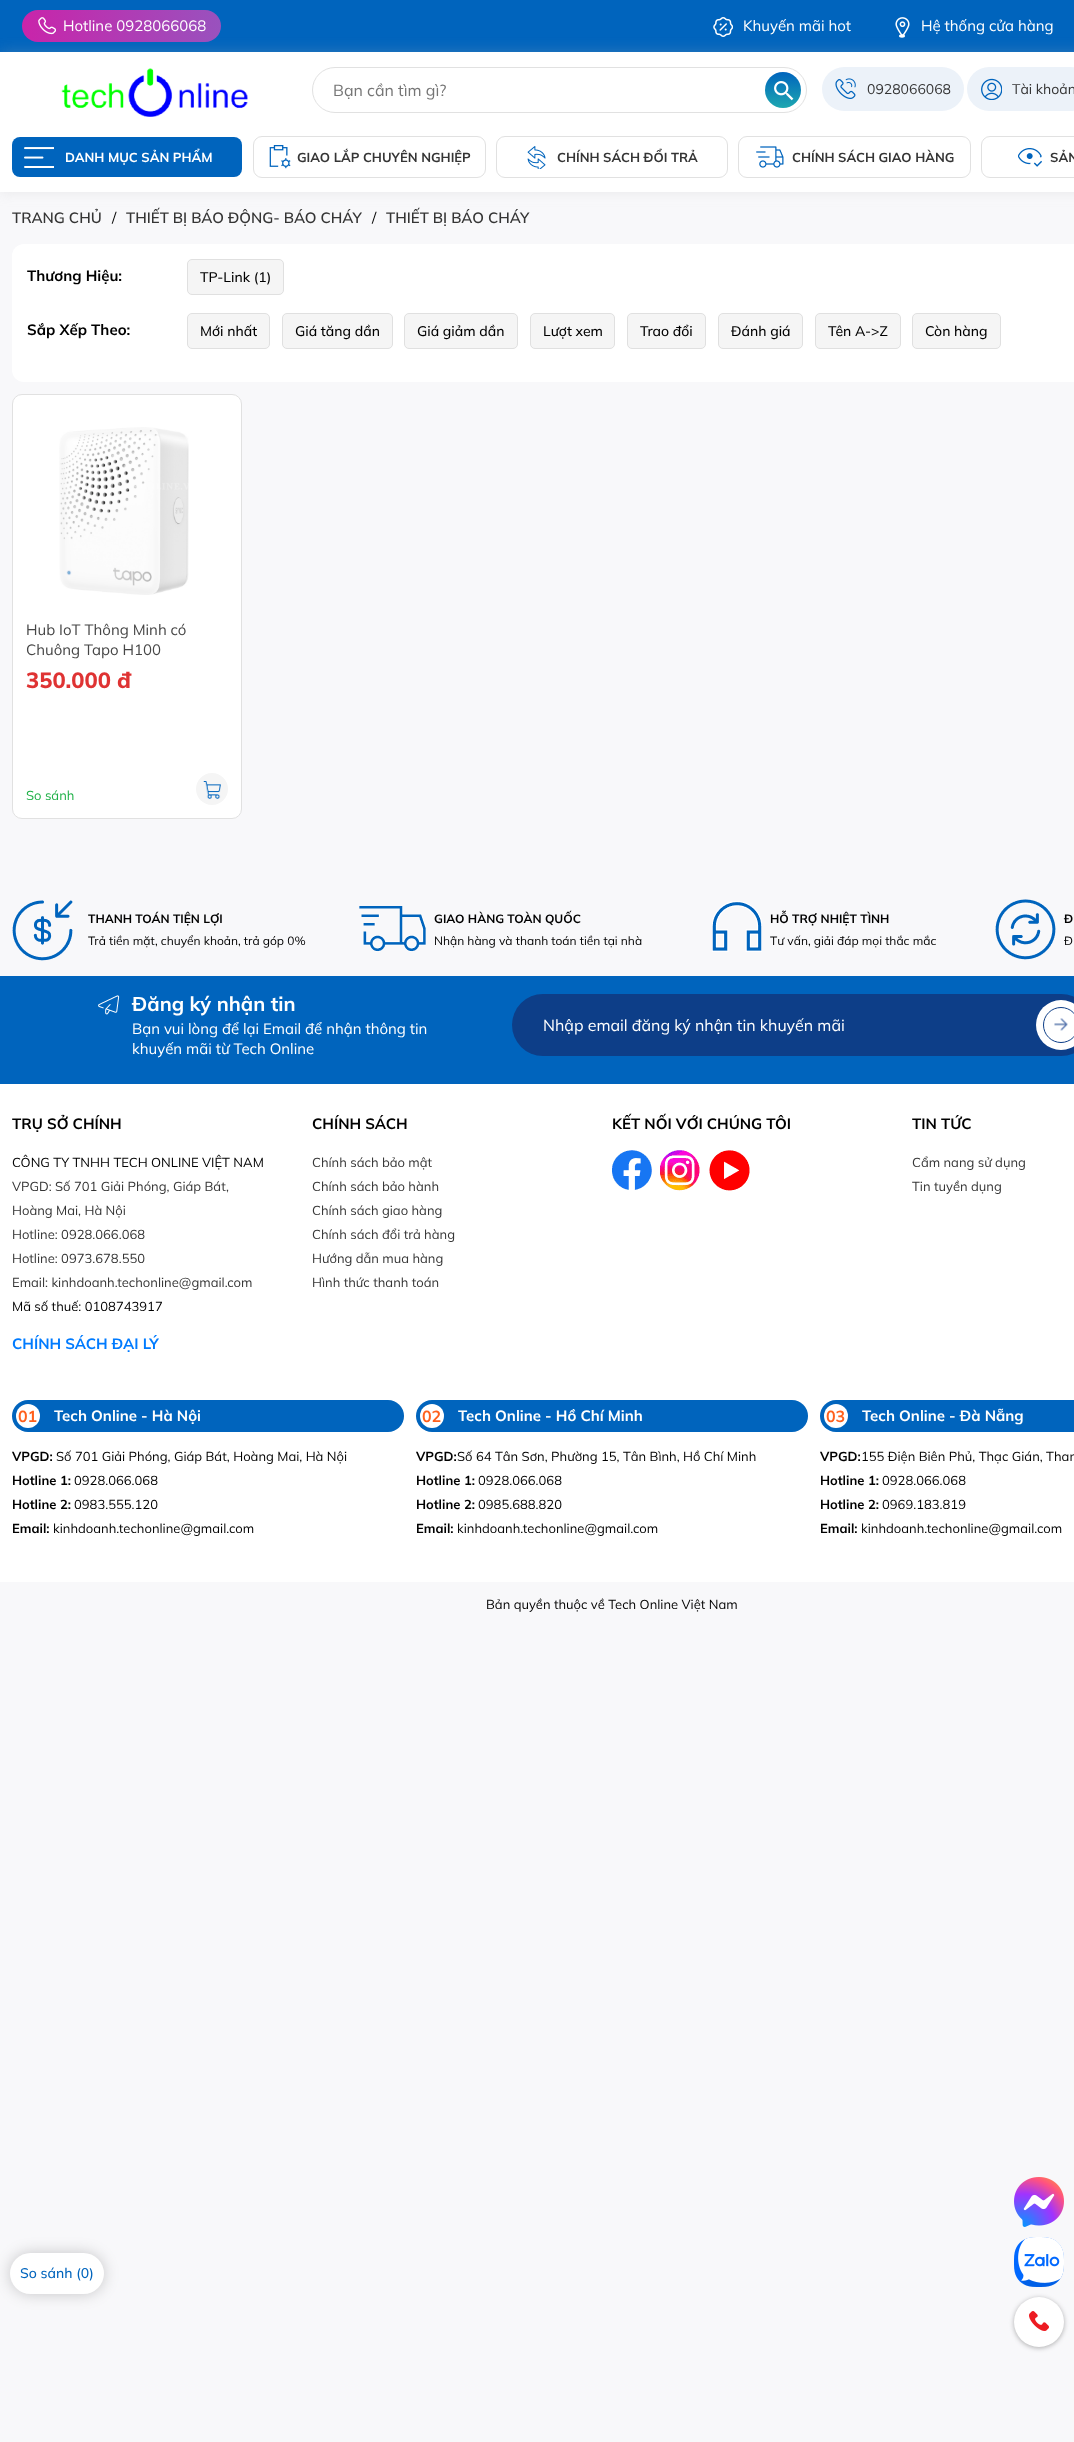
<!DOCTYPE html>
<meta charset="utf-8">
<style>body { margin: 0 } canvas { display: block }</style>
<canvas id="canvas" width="1074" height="2442"></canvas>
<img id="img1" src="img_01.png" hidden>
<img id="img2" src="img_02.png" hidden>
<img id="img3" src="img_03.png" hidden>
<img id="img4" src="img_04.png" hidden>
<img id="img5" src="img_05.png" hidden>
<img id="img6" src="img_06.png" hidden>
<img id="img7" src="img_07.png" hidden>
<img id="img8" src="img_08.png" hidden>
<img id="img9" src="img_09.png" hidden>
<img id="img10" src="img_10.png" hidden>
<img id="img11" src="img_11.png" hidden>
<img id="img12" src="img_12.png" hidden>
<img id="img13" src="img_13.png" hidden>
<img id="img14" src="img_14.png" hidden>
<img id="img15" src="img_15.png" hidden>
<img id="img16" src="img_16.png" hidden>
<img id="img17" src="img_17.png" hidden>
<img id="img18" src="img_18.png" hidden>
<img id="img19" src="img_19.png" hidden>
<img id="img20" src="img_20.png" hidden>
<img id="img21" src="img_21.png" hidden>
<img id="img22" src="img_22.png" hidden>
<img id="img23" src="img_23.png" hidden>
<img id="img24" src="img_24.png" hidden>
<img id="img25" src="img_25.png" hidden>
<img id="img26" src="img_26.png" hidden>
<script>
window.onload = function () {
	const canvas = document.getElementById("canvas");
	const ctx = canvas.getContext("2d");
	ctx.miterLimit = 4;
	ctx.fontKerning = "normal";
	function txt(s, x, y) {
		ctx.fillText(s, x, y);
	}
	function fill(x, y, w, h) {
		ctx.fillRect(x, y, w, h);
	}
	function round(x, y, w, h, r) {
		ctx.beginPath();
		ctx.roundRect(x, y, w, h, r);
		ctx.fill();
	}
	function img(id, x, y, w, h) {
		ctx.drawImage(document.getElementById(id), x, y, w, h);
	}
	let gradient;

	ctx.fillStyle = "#F8F8FA";
	fill(0, 0, 1074, 2442);
	ctx.fillStyle = "#0064BD";
	fill(0, 0, 1074, 52);
	ctx.fillStyle = "rgba(186, 186, 186, 0.25)";
	ctx.filter = "blur(7px)";
	ctx.beginPath();
	ctx.rect(0, 52, 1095, 140);
	ctx.fill();
	ctx.filter = "none";
	gradient = ctx.createLinearGradient(22, 26, 805, 26);
	gradient.addColorStop(0, "#C924AA");
	gradient.addColorStop(0.5, "#6A7ED1");
	gradient.addColorStop(0.5, "#C924AA");
	gradient.addColorStop(1, "#6A7ED1");
	ctx.fillStyle = gradient;
	round(22, 10, 199, 32, 16);
	img("img1", 38, 17, 18, 18);
	img("img2", 713, 17, 20, 20);
	img("img3", 895, 17, 15, 19);
	ctx.fillStyle = "#FFFFFF";
	ctx.beginPath();
	ctx.ellipse(902, 36, 3, 1.7, 0, 0, Math.PI * 2);
	ctx.fill();
	fill(0, 52, 1074, 140);
	img("img4", 61, 68, 187, 49);
	ctx.beginPath();
	ctx.roundRect(312.5, 67.5, 494, 45, 22.5);
	ctx.strokeStyle = "#E1E1E1";
	ctx.stroke();
	gradient = ctx.createLinearGradient(783, 72, 783, 108);
	gradient.addColorStop(0, "#0064BD");
	gradient.addColorStop(1, "#1DA7B0");
	ctx.fillStyle = gradient;
	ctx.beginPath();
	ctx.arc(783, 90, 18, 0, Math.PI * 2);
	ctx.fill();
	img("img5", 774, 81, 20, 20);
	ctx.fillStyle = "#ECF2F9";
	round(822, 67, 142, 44, 22);
	img("img6", 835, 78, 21, 21);
	round(967, 67, 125, 44, 22);
	img("img7", 981, 78, 21, 22);
	ctx.fillStyle = "#0064BD";
	round(12, 137, 230, 40, 8);
	img("img8", 24, 147, 30, 21);
	ctx.beginPath();
	ctx.roundRect(253.5, 136.5, 232, 41, 8.5);
	ctx.stroke();
	img("img9", 269, 145, 22, 24);
	ctx.beginPath();
	ctx.roundRect(496.5, 136.5, 231, 41, 8.5);
	ctx.stroke();
	img("img10", 527, 146, 19, 23);
	ctx.beginPath();
	ctx.roundRect(738.5, 136.5, 232, 41, 8.5);
	ctx.stroke();
	img("img11", 756, 146, 28, 22);
	ctx.beginPath();
	ctx.roundRect(981.5, 136.5, 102, 41, 8.5);
	ctx.stroke();
	img("img12", 1018, 148, 24, 19);
	ctx.fillStyle = "#FFFFFF";
	round(12, 244, 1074, 138, 12);
	ctx.fillStyle = "#F5F5F5";
	ctx.beginPath();
	ctx.roundRect(187.5, 259.5, 96, 35, 4.5);
	ctx.fill();
	ctx.strokeStyle = "#E0E0E0";
	ctx.stroke();
	ctx.beginPath();
	ctx.roundRect(187.5, 313.5, 82, 35, 4.5);
	ctx.fill();
	ctx.stroke();
	ctx.beginPath();
	ctx.roundRect(282.5, 313.5, 110, 35, 4.5);
	ctx.fill();
	ctx.stroke();
	ctx.beginPath();
	ctx.roundRect(404.5, 313.5, 113, 35, 4.5);
	ctx.fill();
	ctx.stroke();
	ctx.beginPath();
	ctx.roundRect(530.5, 313.5, 84, 35, 4.5);
	ctx.fill();
	ctx.stroke();
	ctx.beginPath();
	ctx.roundRect(627.5, 313.5, 78, 35, 4.5);
	ctx.fill();
	ctx.stroke();
	ctx.beginPath();
	ctx.roundRect(718.5, 313.5, 84, 35, 4.5);
	ctx.fill();
	ctx.stroke();
	ctx.beginPath();
	ctx.roundRect(815.5, 313.5, 85, 35, 4.5);
	ctx.fill();
	ctx.stroke();
	ctx.beginPath();
	ctx.roundRect(912.5, 313.5, 88, 35, 4.5);
	ctx.fill();
	ctx.stroke();
	ctx.fillStyle = "#FFFFFF";
	ctx.beginPath();
	ctx.roundRect(12.5, 394.5, 229, 424, 9.5);
	ctx.fill();
	ctx.strokeStyle = "#E1E1E1";
	ctx.stroke();
	img("img13", 59, 427, 130, 168);
	ctx.fillStyle = "#F5F5F5";
	ctx.beginPath();
	ctx.arc(212, 789, 16, 0, Math.PI * 2);
	ctx.fill();
	img("img14", 203, 781, 18, 18);
	img("img15", 12, 900, 61, 61);
	img("img16", 359, 906, 67, 46);
	img("img17", 712, 901, 50, 51);
	img("img18", 995, 899, 61, 61);
	ctx.fillStyle = "#0064BD";
	fill(0, 976, 1074, 108);
	img("img19", 98, 995, 22, 20);
	ctx.fillStyle = "#0D3E88";
	round(512, 994, 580, 62, 31);
	ctx.fillStyle = "#FFFFFF";
	ctx.beginPath();
	ctx.arc(1061, 1025, 25, 0, Math.PI * 2);
	ctx.fill();
	ctx.beginPath();
	ctx.arc(1061, 1025, 17.5, 0, Math.PI * 2);
	ctx.strokeStyle = "#0D3E88";
	ctx.stroke();
	img("img20", 1054, 1018, 14, 13);
	fill(0, 1084, 1074, 498);
	img("img21", 612, 1150, 40, 40);
	img("img22", 660, 1150, 40, 41);
	img("img23", 709, 1150, 41, 41);
	ctx.fillStyle = "#0064BD";
	round(12, 1400, 392, 32, 16);
	ctx.fillStyle = "#FFFFFF";
	ctx.beginPath();
	ctx.arc(28, 1416, 12, 0, Math.PI * 2);
	ctx.fill();
	ctx.fillStyle = "#0064BD";
	round(416, 1400, 392, 32, 16);
	ctx.fillStyle = "#FFFFFF";
	ctx.beginPath();
	ctx.arc(432, 1416, 12, 0, Math.PI * 2);
	ctx.fill();
	ctx.fillStyle = "#0064BD";
	round(820, 1400, 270, 32, 16);
	ctx.fillStyle = "#FFFFFF";
	ctx.beginPath();
	ctx.arc(836, 1416, 12, 0, Math.PI * 2);
	ctx.fill();
	ctx.fillStyle = "rgba(0, 0, 0, 0.2)";
	ctx.filter = "blur(7.5px)";
	ctx.beginPath();
	ctx.roundRect(10, 2253, 94, 41, 20.5);
	ctx.fill();
	ctx.filter = "none";
	ctx.fillStyle = "#FFFFFF";
	round(10, 2253, 94, 41, 20.5);
	img("img24", 1014, 2177, 50, 50);
	img("img25", 1014, 2237, 50, 50);
	ctx.fillStyle = "rgba(0, 0, 0, 0.3)";
	ctx.filter = "blur(2.5px)";
	ctx.beginPath();
	ctx.roundRect(1014, 2298, 50, 50, 25);
	ctx.fill();
	ctx.filter = "none";
	ctx.fillStyle = "#FFFFFF";
	ctx.beginPath();
	ctx.arc(1039, 2322, 25, 0, Math.PI * 2);
	ctx.fill();
	img("img26", 1029, 2311, 20, 20);
	ctx.font = "15px Mulish";
	txt("Hotline 0928066068", 63, 31);
	txt("Khuyến mãi hot", 743, 31);
	txt("Hệ thống cửa hàng", 921, 31);
	ctx.font = "16px Mulish";
	ctx.fillStyle = "#757575";
	txt("Bạn cần tìm gì?", 333, 96);
	ctx.font = "14px Mulish";
	ctx.fillStyle = "#353535";
	txt("0928066068", 867, 94);
	txt("Tài khoản", 1012, 94);
	ctx.font = "bold 13px Mulish";
	ctx.fillStyle = "#FFFFFF";
	txt("DANH MỤC SẢN PHẨM", 65, 162);
	ctx.fillStyle = "#353535";
	txt("GIAO LẮP CHUYÊN NGHIỆP", 297, 162);
	txt("CHÍNH SÁCH ĐỔI TRẢ", 557, 162);
	txt("CHÍNH SÁCH GIAO HÀNG", 792, 162);
	txt("SẢN", 1050, 162);
	ctx.font = "600 15px Mulish";
	txt("TRANG CHỦ", 12, 223);
	ctx.font = "15px Mulish";
	ctx.fillStyle = "#000000";
	txt("/", 112, 223);
	ctx.font = "600 15px Mulish";
	ctx.fillStyle = "#353535";
	txt("THIẾT BỊ BÁO ĐỘNG- BÁO CHÁY", 126, 223);
	ctx.font = "15px Mulish";
	ctx.fillStyle = "#000000";
	txt("/", 372, 223);
	ctx.font = "600 15px Mulish";
	ctx.fillStyle = "#353535";
	txt("THIẾT BỊ BÁO CHÁY", 386, 223);
	ctx.font = "bold 15px Mulish";
	ctx.fillStyle = "#000000";
	txt("Thương Hiệu:", 27, 281);
	ctx.font = "500 14px Mulish";
	txt("TP-Link (1)", 200, 282);
	ctx.font = "bold 15px Mulish";
	txt("Sắp Xếp Theo:", 27, 335);
	ctx.font = "500 14px Mulish";
	txt("Mới nhất", 200, 336);
	txt("Giá tăng dần", 295, 336);
	txt("Giá giảm dần", 417, 336);
	txt("Lượt xem", 543, 336);
	txt("Trao đổi", 640, 336);
	txt("Đánh giá", 731, 336);
	txt("Tên A->Z", 828, 336);
	txt("Còn hàng", 925, 336);
	ctx.font = "15px Mulish";
	ctx.fillStyle = "#464646";
	txt("Hub IoT Thông Minh có", 26, 635);
	txt("Chuông Tapo H100", 26, 655);
	ctx.font = "800 22px Mulish";
	ctx.fillStyle = "#DF3333";
	txt("350.000 đ", 26, 688);
	ctx.font = "13px Mulish";
	ctx.fillStyle = "#1DB046";
	txt("So sánh", 26, 800);
	ctx.font = "bold 12px Mulish";
	ctx.fillStyle = "#000000";
	txt("THANH TOÁN TIỆN LỢI", 88, 923);
	ctx.font = "12px Mulish";
	txt("Trả tiền mặt, chuyển khoản, trả góp 0%", 88, 945);
	ctx.font = "bold 12px Mulish";
	txt("GIAO HÀNG TOÀN QUỐC", 434, 923);
	ctx.font = "12px Mulish";
	txt("Nhận hàng và thanh toán tiền tại nhà", 434, 945);
	ctx.font = "bold 12px Mulish";
	txt("HỖ TRỢ NHIỆT TÌNH", 770, 923);
	ctx.font = "12px Mulish";
	txt("Tư vấn, giải đáp mọi thắc mắc", 770, 945);
	ctx.font = "bold 12px Mulish";
	txt("Đ", 1064, 923);
	ctx.font = "12px Mulish";
	txt("Đ", 1064, 945);
	ctx.font = "bold 20px Mulish";
	ctx.fillStyle = "#FFFFFF";
	txt("Đăng ký nhận tin", 132, 1011);
	ctx.font = "15px Mulish";
	txt("Bạn vui lòng để lại Email để nhận thông tin", 132, 1034);
	txt("khuyến mãi từ Tech Online", 132, 1054);
	ctx.font = "16px Mulish";
	txt("Nhập email đăng ký nhận tin khuyến mãi", 543, 1031);
	ctx.font = "bold 15px Mulish";
	ctx.fillStyle = "#000000";
	txt("TRỤ SỞ CHÍNH", 12, 1129);
	ctx.font = "13px Mulish";
	txt("CÔNG TY TNHH TECH ONLINE VIỆT NAM", 12, 1167);
	ctx.fillStyle = "#353535";
	txt("VPGD: Số 701 Giải Phóng, Giáp Bát,", 12, 1191);
	txt("Hoàng Mai, Hà Nội", 12, 1215);
	txt("Hotline: 0928.066.068", 12, 1239);
	txt("Hotline: 0973.678.550", 12, 1263);
	txt("Email: kinhdoanh.techonline@gmail.com", 12, 1287);
	ctx.fillStyle = "#000000";
	txt("Mã số thuế: 0108743917", 12, 1311);
	ctx.font = "bold 15px Mulish";
	ctx.fillStyle = "#007BFF";
	txt("CHÍNH SÁCH ĐẠI LÝ", 12, 1349);
	ctx.fillStyle = "#000000";
	txt("CHÍNH SÁCH", 312, 1129);
	ctx.font = "13px Mulish";
	ctx.fillStyle = "#353535";
	txt("Chính sách bảo mật", 312, 1167);
	txt("Chính sách bảo hành", 312, 1191);
	txt("Chính sách giao hàng", 312, 1215);
	txt("Chính sách đổi trả hàng", 312, 1239);
	txt("Hướng dẫn mua hàng", 312, 1263);
	txt("Hình thức thanh toán", 312, 1287);
	ctx.font = "bold 15px Mulish";
	ctx.fillStyle = "#000000";
	txt("KẾT NỐI VỚI CHÚNG TÔI", 612, 1129);
	txt("TIN TỨC", 912, 1129);
	ctx.font = "13px Mulish";
	ctx.fillStyle = "#353535";
	txt("Cẩm nang sử dụng", 912, 1167);
	txt("Tin tuyền dụng", 912, 1191);
	ctx.font = "bold 16px Mulish";
	ctx.fillStyle = "#FF601C";
	txt("01", 18, 1422);
	ctx.font = "bold 15px Mulish";
	ctx.fillStyle = "#FFFFFF";
	txt("Tech Online - Hà Nội", 54, 1421);
	ctx.font = "bold 13px Mulish";
	ctx.fillStyle = "#000000";
	txt("VPGD:", 12, 1461);
	ctx.font = "13px Mulish";
	txt("Số 701 Giải Phóng, Giáp Bát, Hoàng Mai, Hà Nội", 56, 1461);
	ctx.font = "bold 13px Mulish";
	txt("Hotline 1:", 12, 1485);
	ctx.font = "13px Mulish";
	txt("0928.066.068", 74, 1485);
	ctx.font = "bold 13px Mulish";
	txt("Hotline 2:", 12, 1509);
	ctx.font = "13px Mulish";
	txt("0983.555.120", 74, 1509);
	ctx.font = "bold 13px Mulish";
	txt("Email:", 12, 1533);
	ctx.font = "13px Mulish";
	txt("kinhdoanh.techonline@gmail.com", 53, 1533);
	ctx.font = "bold 16px Mulish";
	ctx.fillStyle = "#FF601C";
	txt("02", 422, 1422);
	ctx.font = "bold 15px Mulish";
	ctx.fillStyle = "#FFFFFF";
	txt("Tech Online - Hồ Chí Minh", 458, 1421);
	ctx.font = "bold 13px Mulish";
	ctx.fillStyle = "#000000";
	txt("VPGD:", 416, 1461);
	ctx.font = "13px Mulish";
	txt("Số 64 Tân Sơn, Phường 15, Tân Bình, Hồ Chí Minh", 457, 1461);
	ctx.font = "bold 13px Mulish";
	txt("Hotline 1:", 416, 1485);
	ctx.font = "13px Mulish";
	txt("0928.066.068", 478, 1485);
	ctx.font = "bold 13px Mulish";
	txt("Hotline 2:", 416, 1509);
	ctx.font = "13px Mulish";
	txt("0985.688.820", 478, 1509);
	ctx.font = "bold 13px Mulish";
	txt("Email:", 416, 1533);
	ctx.font = "13px Mulish";
	txt("kinhdoanh.techonline@gmail.com", 457, 1533);
	ctx.font = "bold 16px Mulish";
	ctx.fillStyle = "#FF601C";
	txt("03", 826, 1422);
	ctx.font = "bold 15px Mulish";
	ctx.fillStyle = "#FFFFFF";
	txt("Tech Online - Đà Nẵng", 862, 1421);
	ctx.font = "bold 13px Mulish";
	ctx.fillStyle = "#000000";
	txt("VPGD:", 820, 1461);
	ctx.font = "13px Mulish";
	txt("155 Điện Biên Phủ, Thạc Gián, Than", 861, 1461);
	ctx.font = "bold 13px Mulish";
	txt("Hotline 1:", 820, 1485);
	ctx.font = "13px Mulish";
	txt("0928.066.068", 882, 1485);
	ctx.font = "bold 13px Mulish";
	txt("Hotline 2:", 820, 1509);
	ctx.font = "13px Mulish";
	txt("0969.183.819", 882, 1509);
	ctx.font = "bold 13px Mulish";
	txt("Email:", 820, 1533);
	ctx.font = "13px Mulish";
	txt("kinhdoanh.techonline@gmail.com", 861, 1533);
	txt("Bản quyền thuộc về Tech Online Việt Nam", 486, 1609);
	ctx.font = "500 14px Mulish";
	ctx.fillStyle = "#0064BD";
	txt("So sánh (0)", 20, 2278);
};
</script>
